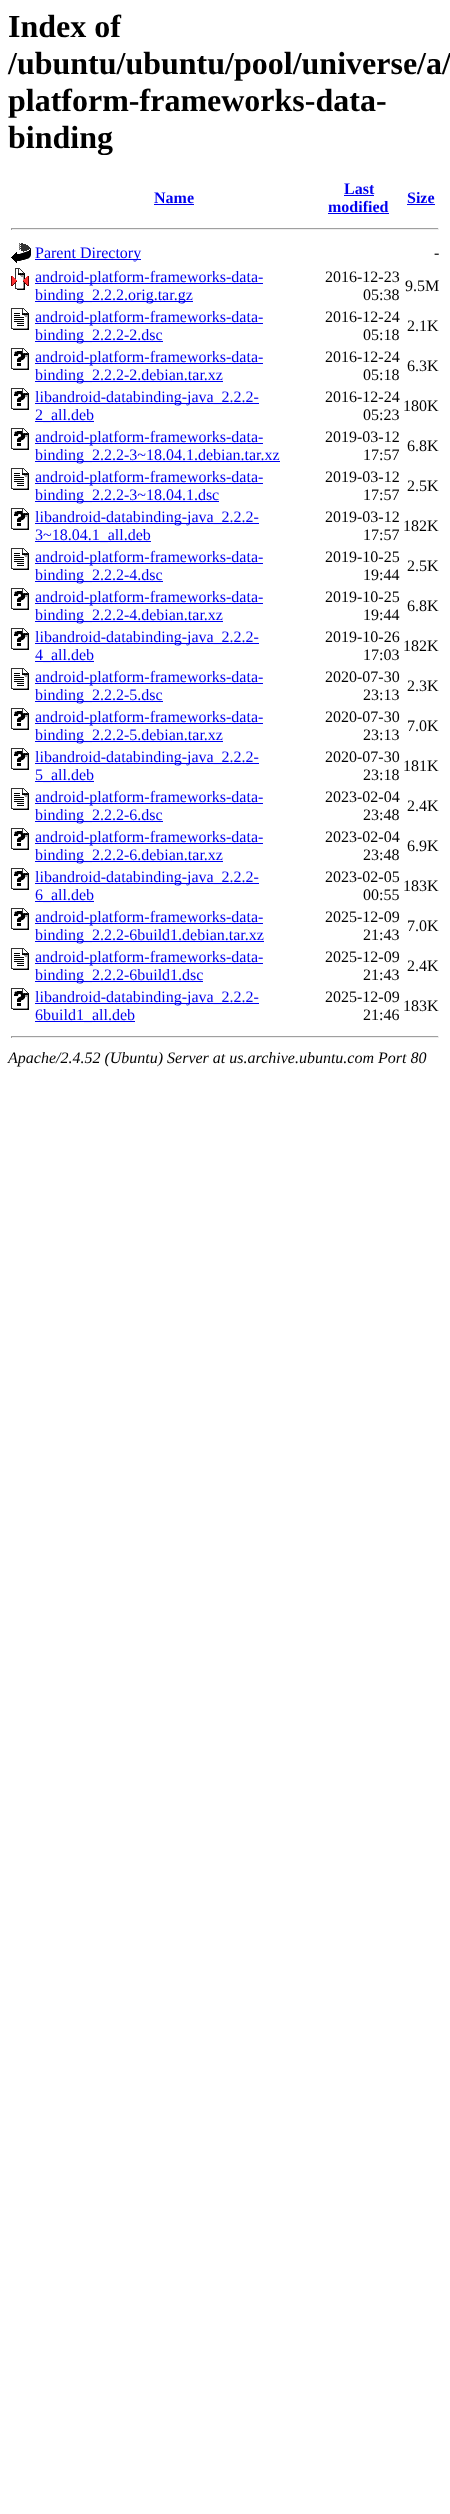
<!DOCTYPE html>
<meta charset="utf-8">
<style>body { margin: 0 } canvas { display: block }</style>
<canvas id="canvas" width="450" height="2514"></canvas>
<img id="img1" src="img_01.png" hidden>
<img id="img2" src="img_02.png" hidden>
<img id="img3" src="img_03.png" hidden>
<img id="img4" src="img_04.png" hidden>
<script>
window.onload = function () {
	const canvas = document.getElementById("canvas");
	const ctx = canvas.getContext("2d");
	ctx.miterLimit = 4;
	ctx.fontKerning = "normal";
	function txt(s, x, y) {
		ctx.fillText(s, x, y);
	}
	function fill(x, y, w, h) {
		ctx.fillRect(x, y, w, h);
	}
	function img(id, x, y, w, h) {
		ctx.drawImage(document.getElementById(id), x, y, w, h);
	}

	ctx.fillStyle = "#FFFFFF";
	fill(0, 0, 450, 2514);
	ctx.fillStyle = "#0000EE";
	fill(154, 204, 40, 1);
	fill(344, 195, 30, 1);
	fill(328, 213, 61, 1);
	fill(407, 204, 28, 1);
	ctx.fillStyle = "#9F9F9F";
	fill(11, 228, 428, 1);
	ctx.fillStyle = "#EEEEEE";
	fill(438, 228, 1, 2);
	fill(11, 229, 428, 1);
	ctx.fillStyle = "#9F9F9F";
	fill(11, 228, 1, 2);
	img("img1", 11, 243, 20, 20);
	ctx.fillStyle = "#0000EE";
	fill(35, 259, 106, 1);
	img("img2", 11, 268, 18, 22);
	fill(35, 283, 228, 1);
	fill(35, 301, 158, 1);
	img("img3", 11, 308, 18, 22);
	fill(35, 323, 228, 1);
	fill(35, 341, 128, 1);
	img("img4", 11, 348, 18, 22);
	fill(35, 363, 228, 1);
	fill(35, 381, 188, 1);
	img("img4", 11, 388, 18, 22);
	fill(35, 403, 224, 1);
	fill(35, 421, 59, 1);
	img("img4", 11, 428, 18, 22);
	fill(35, 443, 228, 1);
	fill(35, 461, 245, 1);
	img("img3", 11, 468, 18, 22);
	fill(35, 483, 228, 1);
	fill(35, 501, 184, 1);
	img("img4", 11, 508, 18, 22);
	fill(35, 523, 224, 1);
	fill(35, 541, 116, 1);
	img("img3", 11, 548, 18, 22);
	fill(35, 563, 228, 1);
	fill(35, 581, 128, 1);
	img("img4", 11, 588, 18, 22);
	fill(35, 603, 228, 1);
	fill(35, 621, 188, 1);
	img("img4", 11, 628, 18, 22);
	fill(35, 643, 224, 1);
	fill(35, 661, 59, 1);
	img("img3", 11, 668, 18, 22);
	fill(35, 683, 228, 1);
	fill(35, 701, 128, 1);
	img("img4", 11, 708, 18, 22);
	fill(35, 723, 228, 1);
	fill(35, 741, 188, 1);
	img("img4", 11, 748, 18, 22);
	fill(35, 763, 224, 1);
	fill(35, 781, 59, 1);
	img("img3", 11, 788, 18, 22);
	fill(35, 803, 228, 1);
	fill(35, 821, 128, 1);
	img("img4", 11, 828, 18, 22);
	fill(35, 843, 228, 1);
	fill(35, 861, 188, 1);
	img("img4", 11, 868, 18, 22);
	fill(35, 883, 224, 1);
	fill(35, 901, 59, 1);
	img("img4", 11, 908, 18, 22);
	fill(35, 923, 228, 1);
	fill(35, 941, 229, 1);
	img("img3", 11, 948, 18, 22);
	fill(35, 963, 228, 1);
	fill(35, 981, 168, 1);
	img("img4", 11, 988, 18, 22);
	fill(35, 1003, 224, 1);
	fill(35, 1021, 100, 1);
	ctx.fillStyle = "#9F9F9F";
	fill(11, 1036, 428, 1);
	ctx.fillStyle = "#EEEEEE";
	fill(438, 1036, 1, 2);
	fill(11, 1037, 428, 1);
	ctx.fillStyle = "#9F9F9F";
	fill(11, 1036, 1, 2);
	ctx.font = "bold 32px Liberation Serif";
	ctx.fillStyle = "#000000";
	txt("Index of", 8, 37);
	txt("/ubuntu/ubuntu/pool/universe/a/", 8, 74);
	txt("platform-frameworks-data-", 8, 111);
	txt("binding", 8, 148);
	ctx.font = "bold 16px Liberation Serif";
	ctx.fillStyle = "#0000EE";
	txt("Name", 154, 203);
	txt("Last", 344, 194);
	txt("modified", 328, 212);
	txt("Size", 407, 203);
	ctx.font = "16px Liberation Serif";
	txt("Parent Directory", 35, 258);
	ctx.fillStyle = "#000000";
	txt("-", 434, 258);
	ctx.fillStyle = "#0000EE";
	txt("android-platform-frameworks-data-", 35, 282);
	txt("binding_2.2.2.orig.tar.gz", 35, 300);
	ctx.fillStyle = "#000000";
	txt("2016-12-23", 325, 282);
	txt("05:38", 363, 300);
	txt("9.5M", 405, 291);
	ctx.fillStyle = "#0000EE";
	txt("android-platform-frameworks-data-", 35, 322);
	txt("binding_2.2.2-2.dsc", 35, 340);
	ctx.fillStyle = "#000000";
	txt("2016-12-24", 325, 322);
	txt("05:18", 363, 340);
	txt("2.1K", 407, 331);
	ctx.fillStyle = "#0000EE";
	txt("android-platform-frameworks-data-", 35, 362);
	txt("binding_2.2.2-2.debian.tar.xz", 35, 380);
	ctx.fillStyle = "#000000";
	txt("2016-12-24", 325, 362);
	txt("05:18", 363, 380);
	txt("6.3K", 407, 371);
	ctx.fillStyle = "#0000EE";
	txt("libandroid-databinding-java_2.2.2-", 35, 402);
	txt("2_all.deb", 35, 420);
	ctx.fillStyle = "#000000";
	txt("2016-12-24", 325, 402);
	txt("05:23", 363, 420);
	txt("180K", 403, 411);
	ctx.fillStyle = "#0000EE";
	txt("android-platform-frameworks-data-", 35, 442);
	txt("binding_2.2.2-3~18.04.1.debian.tar.xz", 35, 460);
	ctx.fillStyle = "#000000";
	txt("2019-03-12", 325, 442);
	txt("17:57", 363, 460);
	txt("6.8K", 407, 451);
	ctx.fillStyle = "#0000EE";
	txt("android-platform-frameworks-data-", 35, 482);
	txt("binding_2.2.2-3~18.04.1.dsc", 35, 500);
	ctx.fillStyle = "#000000";
	txt("2019-03-12", 325, 482);
	txt("17:57", 363, 500);
	txt("2.5K", 407, 491);
	ctx.fillStyle = "#0000EE";
	txt("libandroid-databinding-java_2.2.2-", 35, 522);
	txt("3~18.04.1_all.deb", 35, 540);
	ctx.fillStyle = "#000000";
	txt("2019-03-12", 325, 522);
	txt("17:57", 363, 540);
	txt("182K", 403, 531);
	ctx.fillStyle = "#0000EE";
	txt("android-platform-frameworks-data-", 35, 562);
	txt("binding_2.2.2-4.dsc", 35, 580);
	ctx.fillStyle = "#000000";
	txt("2019-10-25", 325, 562);
	txt("19:44", 363, 580);
	txt("2.5K", 407, 571);
	ctx.fillStyle = "#0000EE";
	txt("android-platform-frameworks-data-", 35, 602);
	txt("binding_2.2.2-4.debian.tar.xz", 35, 620);
	ctx.fillStyle = "#000000";
	txt("2019-10-25", 325, 602);
	txt("19:44", 363, 620);
	txt("6.8K", 407, 611);
	ctx.fillStyle = "#0000EE";
	txt("libandroid-databinding-java_2.2.2-", 35, 642);
	txt("4_all.deb", 35, 660);
	ctx.fillStyle = "#000000";
	txt("2019-10-26", 325, 642);
	txt("17:03", 363, 660);
	txt("182K", 403, 651);
	ctx.fillStyle = "#0000EE";
	txt("android-platform-frameworks-data-", 35, 682);
	txt("binding_2.2.2-5.dsc", 35, 700);
	ctx.fillStyle = "#000000";
	txt("2020-07-30", 325, 682);
	txt("23:13", 363, 700);
	txt("2.3K", 407, 691);
	ctx.fillStyle = "#0000EE";
	txt("android-platform-frameworks-data-", 35, 722);
	txt("binding_2.2.2-5.debian.tar.xz", 35, 740);
	ctx.fillStyle = "#000000";
	txt("2020-07-30", 325, 722);
	txt("23:13", 363, 740);
	txt("7.0K", 407, 731);
	ctx.fillStyle = "#0000EE";
	txt("libandroid-databinding-java_2.2.2-", 35, 762);
	txt("5_all.deb", 35, 780);
	ctx.fillStyle = "#000000";
	txt("2020-07-30", 325, 762);
	txt("23:18", 363, 780);
	txt("181K", 403, 771);
	ctx.fillStyle = "#0000EE";
	txt("android-platform-frameworks-data-", 35, 802);
	txt("binding_2.2.2-6.dsc", 35, 820);
	ctx.fillStyle = "#000000";
	txt("2023-02-04", 325, 802);
	txt("23:48", 363, 820);
	txt("2.4K", 407, 811);
	ctx.fillStyle = "#0000EE";
	txt("android-platform-frameworks-data-", 35, 842);
	txt("binding_2.2.2-6.debian.tar.xz", 35, 860);
	ctx.fillStyle = "#000000";
	txt("2023-02-04", 325, 842);
	txt("23:48", 363, 860);
	txt("6.9K", 407, 851);
	ctx.fillStyle = "#0000EE";
	txt("libandroid-databinding-java_2.2.2-", 35, 882);
	txt("6_all.deb", 35, 900);
	ctx.fillStyle = "#000000";
	txt("2023-02-05", 325, 882);
	txt("00:55", 363, 900);
	txt("183K", 403, 891);
	ctx.fillStyle = "#0000EE";
	txt("android-platform-frameworks-data-", 35, 922);
	txt("binding_2.2.2-6build1.debian.tar.xz", 35, 940);
	ctx.fillStyle = "#000000";
	txt("2025-12-09", 325, 922);
	txt("21:43", 363, 940);
	txt("7.0K", 407, 931);
	ctx.fillStyle = "#0000EE";
	txt("android-platform-frameworks-data-", 35, 962);
	txt("binding_2.2.2-6build1.dsc", 35, 980);
	ctx.fillStyle = "#000000";
	txt("2025-12-09", 325, 962);
	txt("21:43", 363, 980);
	txt("2.4K", 407, 971);
	ctx.fillStyle = "#0000EE";
	txt("libandroid-databinding-java_2.2.2-", 35, 1002);
	txt("6build1_all.deb", 35, 1020);
	ctx.fillStyle = "#000000";
	txt("2025-12-09", 325, 1002);
	txt("21:46", 363, 1020);
	txt("183K", 403, 1011);
	ctx.font = "italic 16px Liberation Serif";
	txt("Apache/2.4.52 (Ubuntu) Server at us.archive.ubuntu.com Port 80", 8, 1063);
};
</script>
